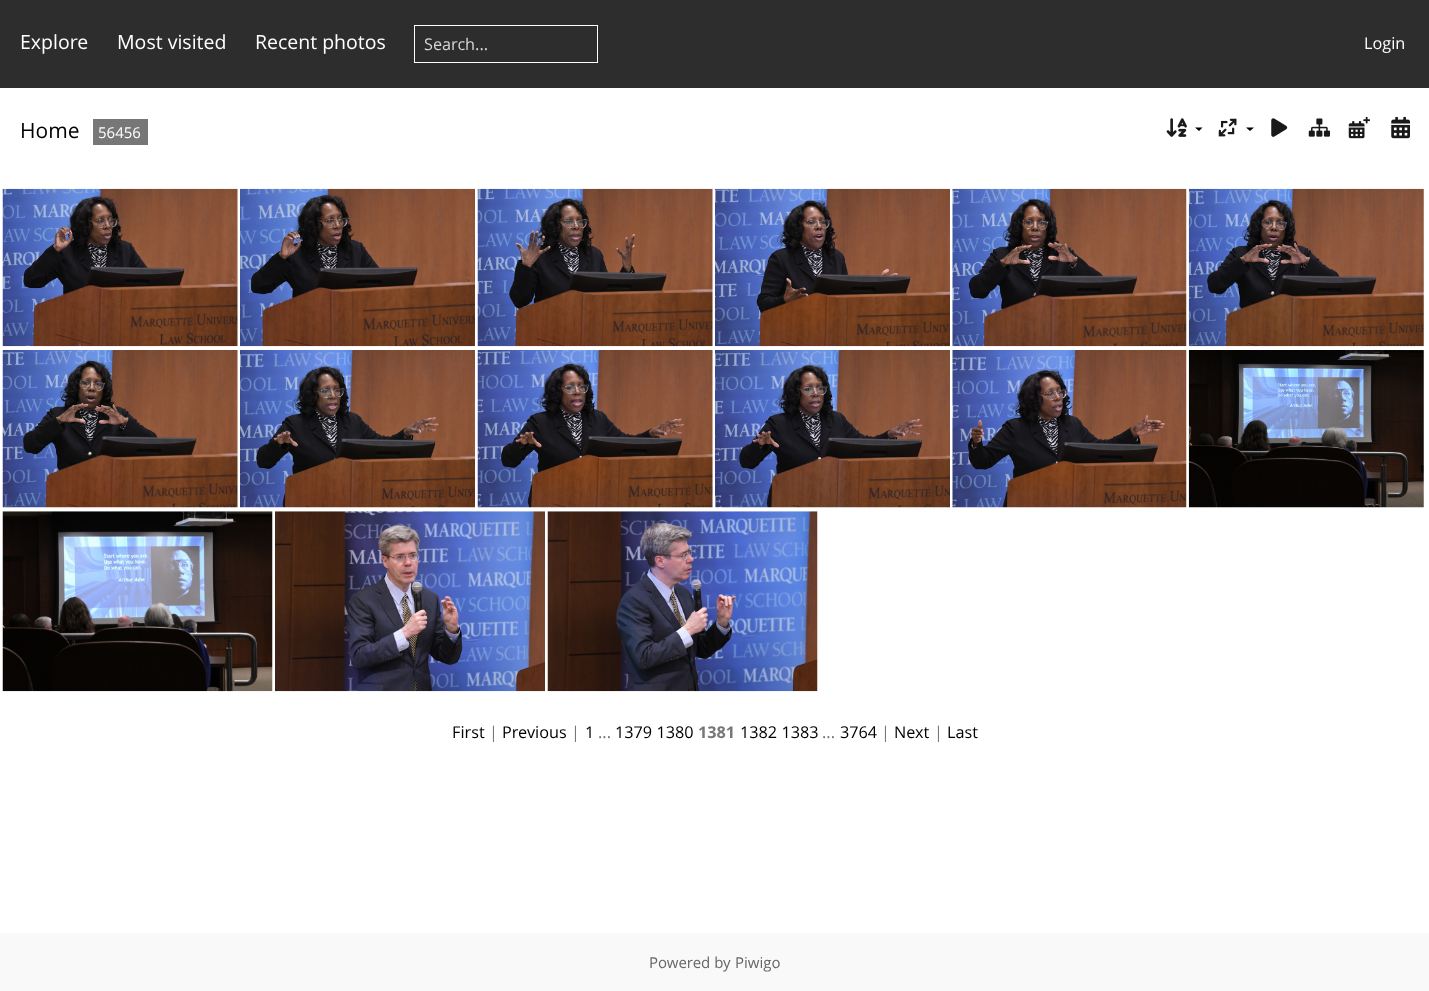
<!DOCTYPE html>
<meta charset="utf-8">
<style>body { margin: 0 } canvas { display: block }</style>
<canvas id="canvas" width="1429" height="991"></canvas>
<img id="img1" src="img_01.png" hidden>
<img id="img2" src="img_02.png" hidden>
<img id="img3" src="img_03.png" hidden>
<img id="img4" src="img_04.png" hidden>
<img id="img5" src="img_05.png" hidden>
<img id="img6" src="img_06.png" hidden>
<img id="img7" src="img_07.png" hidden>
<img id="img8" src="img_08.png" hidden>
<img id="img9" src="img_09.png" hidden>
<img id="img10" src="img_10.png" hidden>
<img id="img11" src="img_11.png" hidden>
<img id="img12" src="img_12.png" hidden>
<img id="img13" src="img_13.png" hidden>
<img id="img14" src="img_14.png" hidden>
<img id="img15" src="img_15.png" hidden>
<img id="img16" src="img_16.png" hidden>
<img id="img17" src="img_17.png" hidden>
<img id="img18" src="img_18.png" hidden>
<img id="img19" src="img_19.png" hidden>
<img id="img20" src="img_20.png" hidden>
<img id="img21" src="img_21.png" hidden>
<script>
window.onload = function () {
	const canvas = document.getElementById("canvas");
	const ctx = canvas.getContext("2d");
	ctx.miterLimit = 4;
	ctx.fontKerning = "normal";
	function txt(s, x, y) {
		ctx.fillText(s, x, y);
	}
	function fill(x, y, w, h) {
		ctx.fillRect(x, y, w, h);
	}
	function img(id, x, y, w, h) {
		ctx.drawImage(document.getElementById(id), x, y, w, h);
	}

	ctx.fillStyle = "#FFFFFF";
	fill(0, 0, 1429, 991);
	ctx.fillStyle = "#2D2D2D";
	fill(0, 0, 1429, 88);
	ctx.strokeStyle = "#FFFFFF";
	ctx.strokeRect(414.5, 25.5, 183, 37);
	ctx.fillStyle = "#777777";
	fill(93, 119, 55, 26);
	img("img1", 1166, 118, 21, 19);
	ctx.fillStyle = "#000000";
	ctx.beginPath();
	ctx.moveTo(1195, 127.5);
	ctx.lineTo(1202.5, 127.5);
	ctx.lineTo(1199, 131);
	ctx.closePath();
	ctx.moveTo(1246, 127.5);
	ctx.lineTo(1254, 127.5);
	ctx.lineTo(1250, 131);
	ctx.closePath();
	ctx.fill();
	img("img2", 1348, 116, 22, 23);
	img("img3", 1391, 116, 19, 23);
	img("img4", 1218, 118, 19, 19);
	img("img5", 1271, 118, 17, 19);
	img("img6", 1308, 118, 22, 19);
	img("img7", 2, 188, 236, 159);
	img("img8", 240, 188, 235, 159);
	img("img9", 477, 188, 236, 159);
	img("img10", 715, 188, 235, 159);
	img("img11", 952, 188, 235, 159);
	img("img12", 1188, 188, 236, 159);
	img("img13", 2, 350, 236, 158);
	img("img14", 240, 350, 235, 158);
	img("img15", 477, 350, 236, 158);
	img("img16", 715, 350, 235, 158);
	img("img17", 952, 350, 235, 158);
	img("img18", 1188, 350, 236, 158);
	img("img19", 2, 511, 271, 181);
	img("img20", 275, 511, 270, 181);
	img("img21", 547, 511, 271, 181);
	ctx.fillStyle = "#F9F9F9";
	fill(0, 933, 1429, 58);
	ctx.font = "19.5px Open Sans";
	ctx.fillStyle = "#FFFFFF";
	txt("Explore", 20, 49);
	txt("Most visited", 117, 49);
	txt("Recent photos", 255, 49);
	ctx.font = "16.25px Open Sans";
	ctx.fillStyle = "#D6D6D6";
	txt("Search...", 424, 50);
	ctx.fillStyle = "#FFFFFF";
	txt("Login", 1364, 49);
	ctx.font = "21px Open Sans";
	ctx.fillStyle = "#000000";
	txt("Home", 20, 138);
	ctx.font = "15px Open Sans";
	ctx.fillStyle = "#FFFFFF";
	txt("56456", 98, 138);
	ctx.font = "16.25px Open Sans";
	ctx.fillStyle = "#000000";
	txt("First", 452, 738);
	ctx.fillStyle = "#777777";
	txt("|", 489, 738);
	ctx.fillStyle = "#000000";
	txt("Previous", 502, 738);
	ctx.fillStyle = "#777777";
	txt("|", 571, 738);
	ctx.fillStyle = "#000000";
	txt("1", 585, 738);
	ctx.fillStyle = "#777777";
	txt("...", 598, 738);
	ctx.fillStyle = "#000000";
	txt("1379 1380", 615, 738);
	ctx.font = "bold 16.25px Open Sans";
	ctx.fillStyle = "#777777";
	txt("1381", 698, 738);
	ctx.font = "16.25px Open Sans";
	ctx.fillStyle = "#000000";
	txt("1382 1383", 740, 738);
	ctx.fillStyle = "#777777";
	txt("...", 822, 738);
	ctx.fillStyle = "#000000";
	txt("3764", 840, 738);
	ctx.fillStyle = "#777777";
	txt("|", 881, 738);
	ctx.fillStyle = "#000000";
	txt("Next", 894, 738);
	ctx.fillStyle = "#777777";
	txt("|", 934, 738);
	ctx.fillStyle = "#000000";
	txt("Last", 947, 738);
	ctx.font = "15px Open Sans";
	ctx.fillStyle = "#666666";
	txt("Powered by", 649, 968);
	txt("Piwigo", 735, 968);
};
</script>
